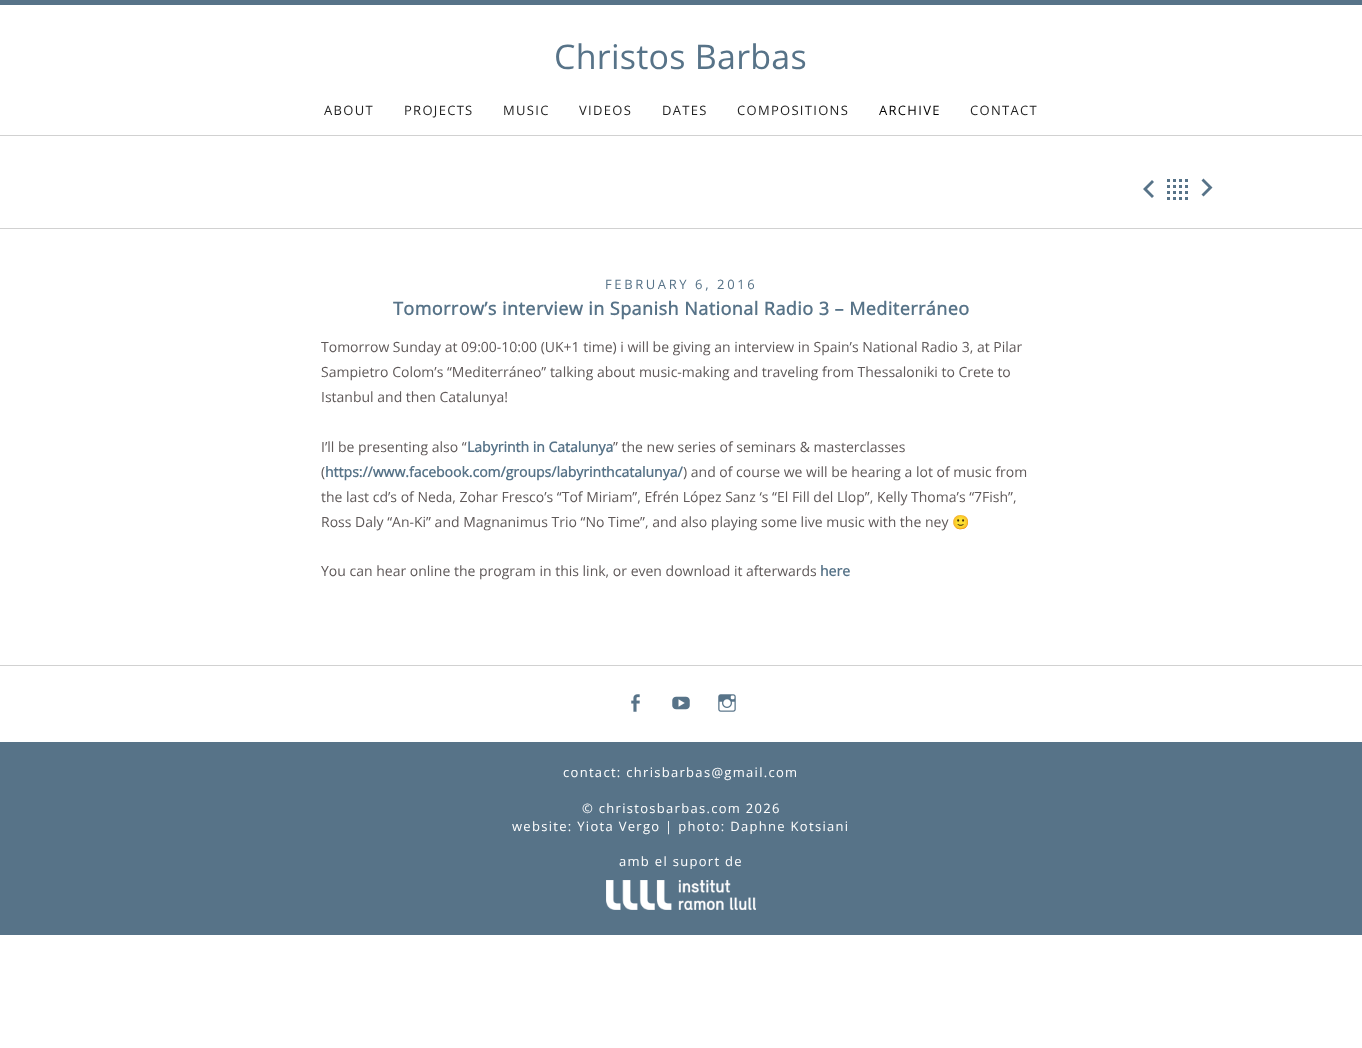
<!DOCTYPE html>
<meta charset="utf-8">
<style>body { margin: 0 } canvas { display: block }</style>
<canvas id="canvas" width="1362" height="1048"></canvas>
<img id="img1" src="img_01.png" hidden>
<img id="img2" src="img_02.png" hidden>
<img id="img3" src="img_03.png" hidden>
<img id="img4" src="img_04.png" hidden>
<img id="img5" src="img_05.png" hidden>
<script>
window.onload = function () {
	const canvas = document.getElementById("canvas");
	const ctx = canvas.getContext("2d");
	ctx.miterLimit = 4;
	ctx.fontKerning = "normal";
	function txt(s, x, y) {
		ctx.fillText(s, x, y);
	}
	function fill(x, y, w, h) {
		ctx.fillRect(x, y, w, h);
	}
	function img(id, x, y, w, h) {
		ctx.drawImage(document.getElementById(id), x, y, w, h);
	}

	ctx.fillStyle = "#FFFFFF";
	fill(0, 0, 1362, 1048);
	ctx.fillStyle = "#577388";
	fill(0, 0, 1362, 5);
	ctx.fillStyle = "#D1D1D1";
	fill(0, 135, 1362, 1);
	fill(0, 228, 1362, 1);
	ctx.fillStyle = "#577388";
	ctx.beginPath();
	ctx.moveTo(1154, 182);
	ctx.lineTo(1147, 189);
	ctx.lineTo(1154, 196);
	ctx.lineTo(1152, 198);
	ctx.lineTo(1143, 189);
	ctx.lineTo(1152, 180);
	ctx.closePath();
	ctx.fill();
	img("img1", 1167, 179, 21, 21);
	ctx.beginPath();
	ctx.moveTo(1201.5, 194.5);
	ctx.lineTo(1208.5, 187.5);
	ctx.lineTo(1201.5, 180.5);
	ctx.lineTo(1203.5, 178.5);
	ctx.lineTo(1212.5, 187.5);
	ctx.lineTo(1203.5, 196.5);
	ctx.closePath();
	ctx.fill();
	ctx.fillStyle = "#D1D1D1";
	fill(0, 665, 1362, 1);
	img("img2", 631, 694, 9, 18);
	img("img3", 672, 696, 18, 14);
	img("img4", 718, 694, 18, 18);
	ctx.fillStyle = "#577388";
	fill(0, 742, 1362, 193);
	img("img5", 606, 880, 150, 30);
	ctx.letterSpacing = "0.25px";
	ctx.font = "34px Open Sans";
	txt("Christos Barbas", 554, 69);
	ctx.letterSpacing = "1.3px";
	ctx.font = "13px Open Sans";
	ctx.fillStyle = "#1F1F1F";
	txt("ABOUT", 324, 115);
	txt("PROJECTS", 404, 115);
	txt("MUSIC", 503, 115);
	txt("VIDEOS", 579, 115);
	txt("DATES", 662, 115);
	txt("COMPOSITIONS", 737, 115);
	ctx.fillStyle = "#000000";
	txt("ARCHIVE", 879, 115);
	ctx.fillStyle = "#1F1F1F";
	txt("CONTACT", 970, 115);
	ctx.letterSpacing = "2.6px";
	ctx.fillStyle = "#577388";
	txt("FEBRUARY 6, 2016", 605, 289);
	ctx.letterSpacing = "0.45px";
	ctx.font = "bold 18px Open Sans";
	txt("Tomorrow’s interview in Spanish National Radio 3 – Mediterráneo", 393, 315);
	ctx.letterSpacing = "0px";
	ctx.font = "14px Open Sans";
	ctx.fillStyle = "#5F5959";
	txt("Tomorrow Sunday at 09:00-10:00 (UK+1 time) i will be giving an interview in Spain’s National Radio 3, at Pilar", 321, 352);
	txt("Sampietro Colom’s “Mediterráneo” talking about music-making and traveling from Thessaloniki to Crete to", 321, 377);
	txt("Istanbul and then Catalunya!", 321, 402);
	txt("I’ll be presenting also “", 321, 452);
	ctx.font = "bold 14px Open Sans";
	ctx.fillStyle = "#577388";
	txt("Labyrinth in Catalunya", 467, 452);
	ctx.font = "14px Open Sans";
	ctx.fillStyle = "#5F5959";
	txt("” the new series of seminars & masterclasses", 613, 452);
	txt("(", 321, 477);
	ctx.font = "bold 14px Open Sans";
	ctx.fillStyle = "#577388";
	txt("https://www.facebook.com/groups/labyrinthcatalunya/", 325, 477);
	ctx.font = "14px Open Sans";
	ctx.fillStyle = "#5F5959";
	txt(") and of course we will be hearing a lot of music from", 683, 477);
	txt("the last cd’s of Neda, Zohar Fresco’s “Tof Miriam”, Efrén López Sanz ‘s “El Fill del Llop”, Kelly Thoma’s “7Fish”,", 321, 502);
	txt("Ross Daly “An-Ki” and Magnanimus Trio “No Time”, and also playing some live music with the ney", 321, 527);
	ctx.font = "14px Noto Color Emoji";
	txt("🙂", 952, 527);
	ctx.font = "14px Open Sans";
	txt("You can hear online the program in this link, or even download it afterwards", 321, 576);
	ctx.font = "bold 14px Open Sans";
	ctx.fillStyle = "#577388";
	txt("here", 820, 576);
	ctx.letterSpacing = "1.3px";
	ctx.font = "13px Open Sans";
	ctx.fillStyle = "#FFFFFF";
	txt("contact: chrisbarbas@gmail.com", 563, 777);
	txt("© christosbarbas.com 2026", 582, 813);
	txt("website: Yiota Vergo | photo: Daphne Kotsiani", 512, 831);
	txt("amb el suport de", 619, 866);
};
</script>
